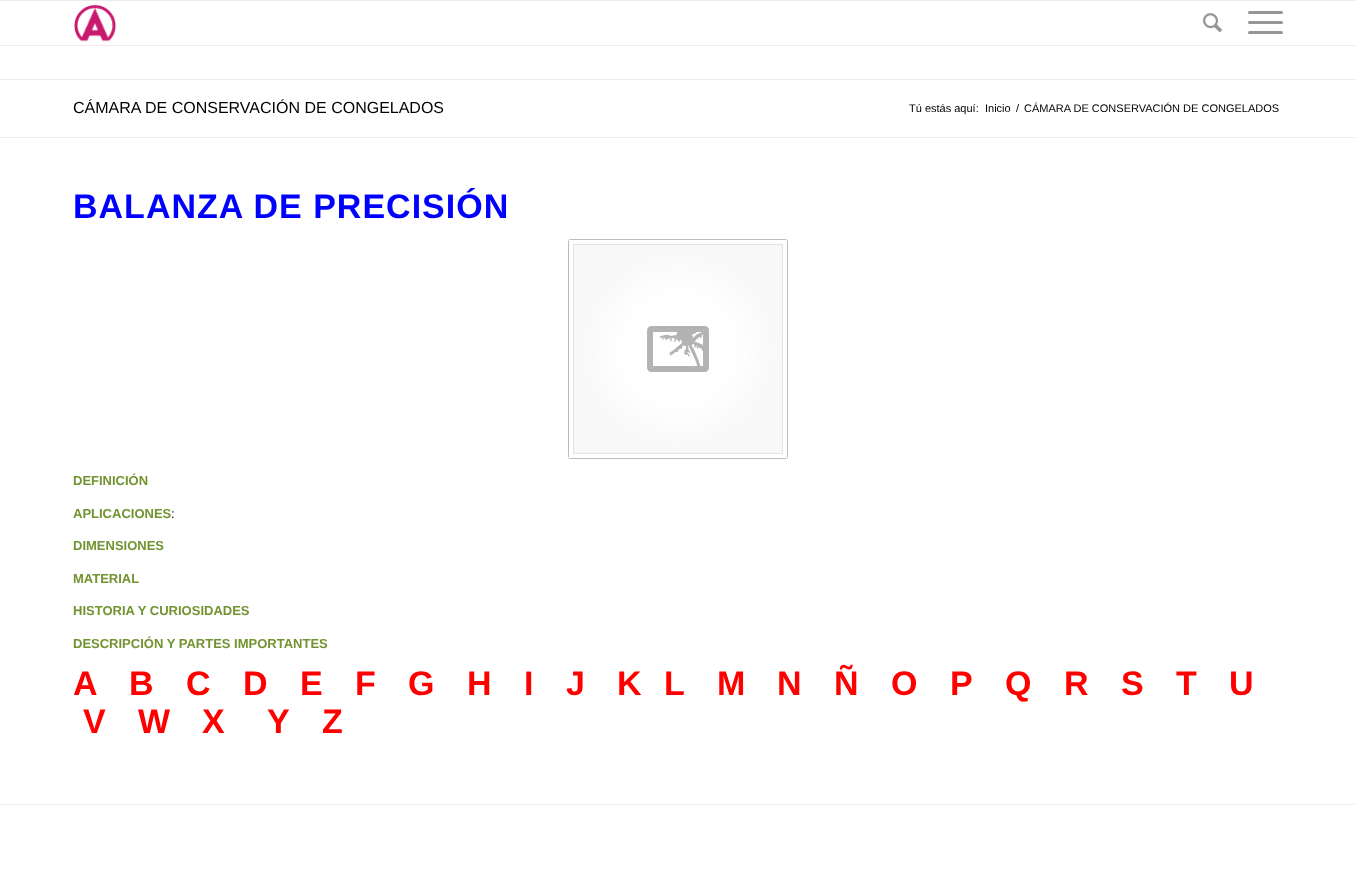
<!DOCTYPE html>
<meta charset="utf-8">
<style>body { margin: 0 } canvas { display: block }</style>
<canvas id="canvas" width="1355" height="887"></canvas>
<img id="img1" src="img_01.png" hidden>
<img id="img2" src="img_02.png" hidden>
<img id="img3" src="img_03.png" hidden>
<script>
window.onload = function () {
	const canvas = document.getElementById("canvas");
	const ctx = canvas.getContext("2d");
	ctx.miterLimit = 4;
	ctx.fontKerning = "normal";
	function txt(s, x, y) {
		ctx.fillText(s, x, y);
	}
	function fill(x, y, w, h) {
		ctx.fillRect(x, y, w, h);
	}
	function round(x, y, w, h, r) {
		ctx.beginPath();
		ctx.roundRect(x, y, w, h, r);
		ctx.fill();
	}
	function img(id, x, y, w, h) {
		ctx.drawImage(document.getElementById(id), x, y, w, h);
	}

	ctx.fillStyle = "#FFFFFF";
	fill(0, 0, 1355, 887);
	ctx.fillStyle = "#EBEBEB";
	fill(0, 0, 1355, 1);
	fill(0, 45, 1355, 1);
	img("img1", 74, 4, 43, 38);
	img("img2", 1203, 13, 19, 20);
	ctx.fillStyle = "#969696";
	round(1248, 21, 35, 3, 1.5);
	round(1248, 11, 35, 3, 1.5);
	round(1248, 31, 35, 3, 1.5);
	ctx.fillStyle = "#EBEBEB";
	fill(0, 79, 1355, 1);
	fill(0, 137, 1355, 1);
	img("img3", 568, 239, 220, 220);
	fill(0, 804, 1355, 1);
	ctx.font = "16px Liberation Sans";
	ctx.fillStyle = "#000000";
	txt("CÁMARA DE CONSERVACIÓN DE CONGELADOS", 73, 113);
	ctx.font = "11px Liberation Sans";
	txt("Tú estás aquí:", 909, 112);
	txt("Inicio", 985, 112);
	txt("/", 1016, 112);
	txt("CÁMARA DE CONSERVACIÓN DE CONGELADOS", 1024, 112);
	ctx.letterSpacing = "1px";
	ctx.font = "bold 34px Liberation Sans";
	ctx.fillStyle = "#0000FF";
	txt("BALANZA DE PRECISIÓN", 73, 218);
	ctx.letterSpacing = "0px";
	ctx.font = "bold 13px Liberation Sans";
	ctx.fillStyle = "#719430";
	txt("DEFINICIÓN", 73, 485);
	txt("APLICACIONES", 73, 518);
	ctx.font = "13px Liberation Sans";
	ctx.fillStyle = "#000000";
	txt(":", 171, 518);
	ctx.font = "bold 13px Liberation Sans";
	ctx.fillStyle = "#719430";
	txt("DIMENSIONES", 73, 550);
	txt("MATERIAL", 73, 583);
	txt("HISTORIA Y CURIOSIDADES", 73, 615);
	txt("DESCRIPCIÓN Y PARTES IMPORTANTES", 73, 648);
	ctx.letterSpacing = "1px";
	ctx.font = "bold 34px Liberation Sans";
	ctx.fillStyle = "#FF0000";
	txt("A", 73, 695);
	txt("B", 129, 695);
	txt("C", 186, 695);
	txt("D", 243, 695);
	txt("E", 300, 695);
	txt("F", 355, 695);
	txt("G", 408, 695);
	txt("H", 467, 695);
	txt("I", 524, 695);
	txt("J", 566, 695);
	txt("K", 617, 695);
	txt("L", 664, 695);
	txt("M", 717, 695);
	txt("N", 777, 695);
	txt("Ñ", 834, 695);
	txt("O", 891, 695);
	txt("P", 950, 695);
	txt("Q", 1005, 695);
	txt("R", 1064, 695);
	txt("S", 1121, 695);
	txt("T", 1176, 695);
	txt("U", 1229, 695);
	txt("V", 83, 733);
	txt("W", 138, 733);
	txt("X", 202, 733);
	txt("Y", 267, 733);
	txt("Z", 322, 733);
};
</script>
